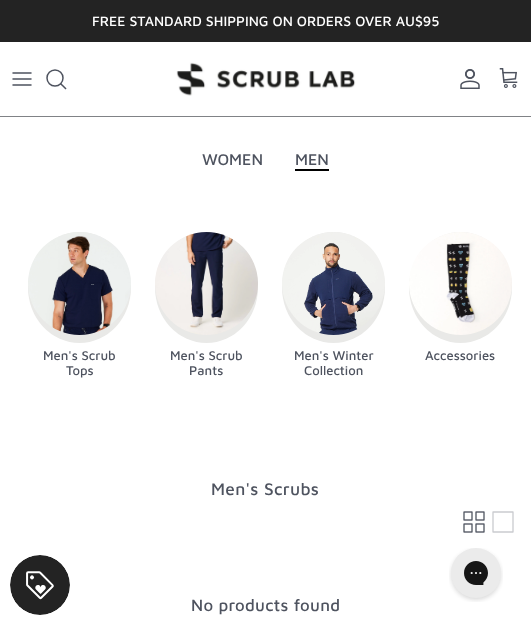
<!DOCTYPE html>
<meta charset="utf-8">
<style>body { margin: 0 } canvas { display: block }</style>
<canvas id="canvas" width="531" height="625"></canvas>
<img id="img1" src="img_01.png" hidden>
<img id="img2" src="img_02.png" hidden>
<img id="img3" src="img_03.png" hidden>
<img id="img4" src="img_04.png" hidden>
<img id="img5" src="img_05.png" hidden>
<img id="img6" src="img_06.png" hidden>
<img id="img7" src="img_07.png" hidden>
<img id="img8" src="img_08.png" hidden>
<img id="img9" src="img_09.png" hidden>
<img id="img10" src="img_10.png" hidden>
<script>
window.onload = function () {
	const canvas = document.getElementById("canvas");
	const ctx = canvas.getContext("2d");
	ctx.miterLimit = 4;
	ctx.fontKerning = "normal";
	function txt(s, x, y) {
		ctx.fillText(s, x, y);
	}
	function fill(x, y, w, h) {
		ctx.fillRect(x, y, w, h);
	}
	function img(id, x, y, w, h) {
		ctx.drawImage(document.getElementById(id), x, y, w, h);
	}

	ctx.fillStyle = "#FFFFFF";
	fill(0, 0, 531, 625);
	ctx.fillStyle = "#232323";
	fill(0, 0, 531, 42);
	ctx.fillStyle = "#808286";
	fill(0, 116, 531, 1);
	ctx.beginPath();
	ctx.moveTo(13, 79);
	ctx.lineTo(31, 79);
	ctx.moveTo(13, 73);
	ctx.lineTo(31, 73);
	ctx.moveTo(13, 85);
	ctx.lineTo(31, 85);
	ctx.strokeStyle = "#4E535F";
	ctx.lineWidth = 1.5;
	ctx.lineCap = "round";
	ctx.lineJoin = "round";
	ctx.stroke();
	ctx.beginPath();
	ctx.arc(55, 78, 8, 0, Math.PI * 2);
	ctx.stroke();
	ctx.beginPath();
	ctx.moveTo(61, 84);
	ctx.lineTo(65.5, 88.5);
	ctx.lineCap = "square";
	ctx.lineJoin = "miter";
	ctx.stroke();
	img("img1", 176, 62, 180, 34);
	img("img2", 460, 69, 20, 20);
	img("img3", 499, 68, 19, 20);
	ctx.fillStyle = "#000000";
	fill(295, 169, 34, 2);
	ctx.fillStyle = "#E9E9E7";
	ctx.beginPath();
	ctx.ellipse(79.5, 287.5, 51.5, 55.5, 0, 0, Math.PI * 2);
	ctx.fill();
	img("img4", 28, 232, 103, 103);
	ctx.beginPath();
	ctx.ellipse(206.5, 287.5, 51.5, 55.5, 0, 0, Math.PI * 2);
	ctx.fill();
	img("img5", 155, 232, 103, 103);
	ctx.beginPath();
	ctx.ellipse(333.5, 287.5, 51.5, 55.5, 0, 0, Math.PI * 2);
	ctx.fill();
	img("img6", 282, 232, 103, 103);
	ctx.beginPath();
	ctx.ellipse(460.5, 287.5, 51.5, 55.5, 0, 0, Math.PI * 2);
	ctx.fill();
	img("img7", 409, 232, 103, 103);
	img("img8", 463, 511, 22, 22);
	ctx.beginPath();
	ctx.moveTo(493, 512);
	ctx.lineTo(513, 512);
	ctx.lineTo(513, 532);
	ctx.lineTo(493, 532);
	ctx.lineTo(493, 512);
	ctx.strokeStyle = "#CACBCF";
	ctx.lineWidth = 1.3;
	ctx.lineCap = "round";
	ctx.lineJoin = "round";
	ctx.stroke();
	img("img9", 10, 555, 60, 60);
	img("img10", 449, 548, 54, 54);
	ctx.font = "500 14px Maven Pro";
	ctx.fillStyle = "#FFFFFF";
	txt("FREE STANDARD SHIPPING ON ORDERS OVER AU$95", 92, 26);
	ctx.font = "500 16px Maven Pro";
	ctx.fillStyle = "#4E535F";
	txt("WOMEN", 202, 165);
	txt("MEN", 295, 165);
	ctx.font = "500 13px Maven Pro";
	txt("Men's Scrub", 43, 360);
	txt("Tops", 66, 375);
	txt("Men's Scrub", 170, 360);
	txt("Pants", 189, 375);
	txt("Men's Winter", 294, 360);
	txt("Collection", 304, 375);
	txt("Accessories", 425, 360);
	ctx.letterSpacing = "0.3px";
	ctx.font = "500 17.25px Maven Pro";
	txt("Men's Scrubs", 211, 495);
	ctx.font = "500 16.75px Maven Pro";
	txt("No products found", 191, 611);
};
</script>
